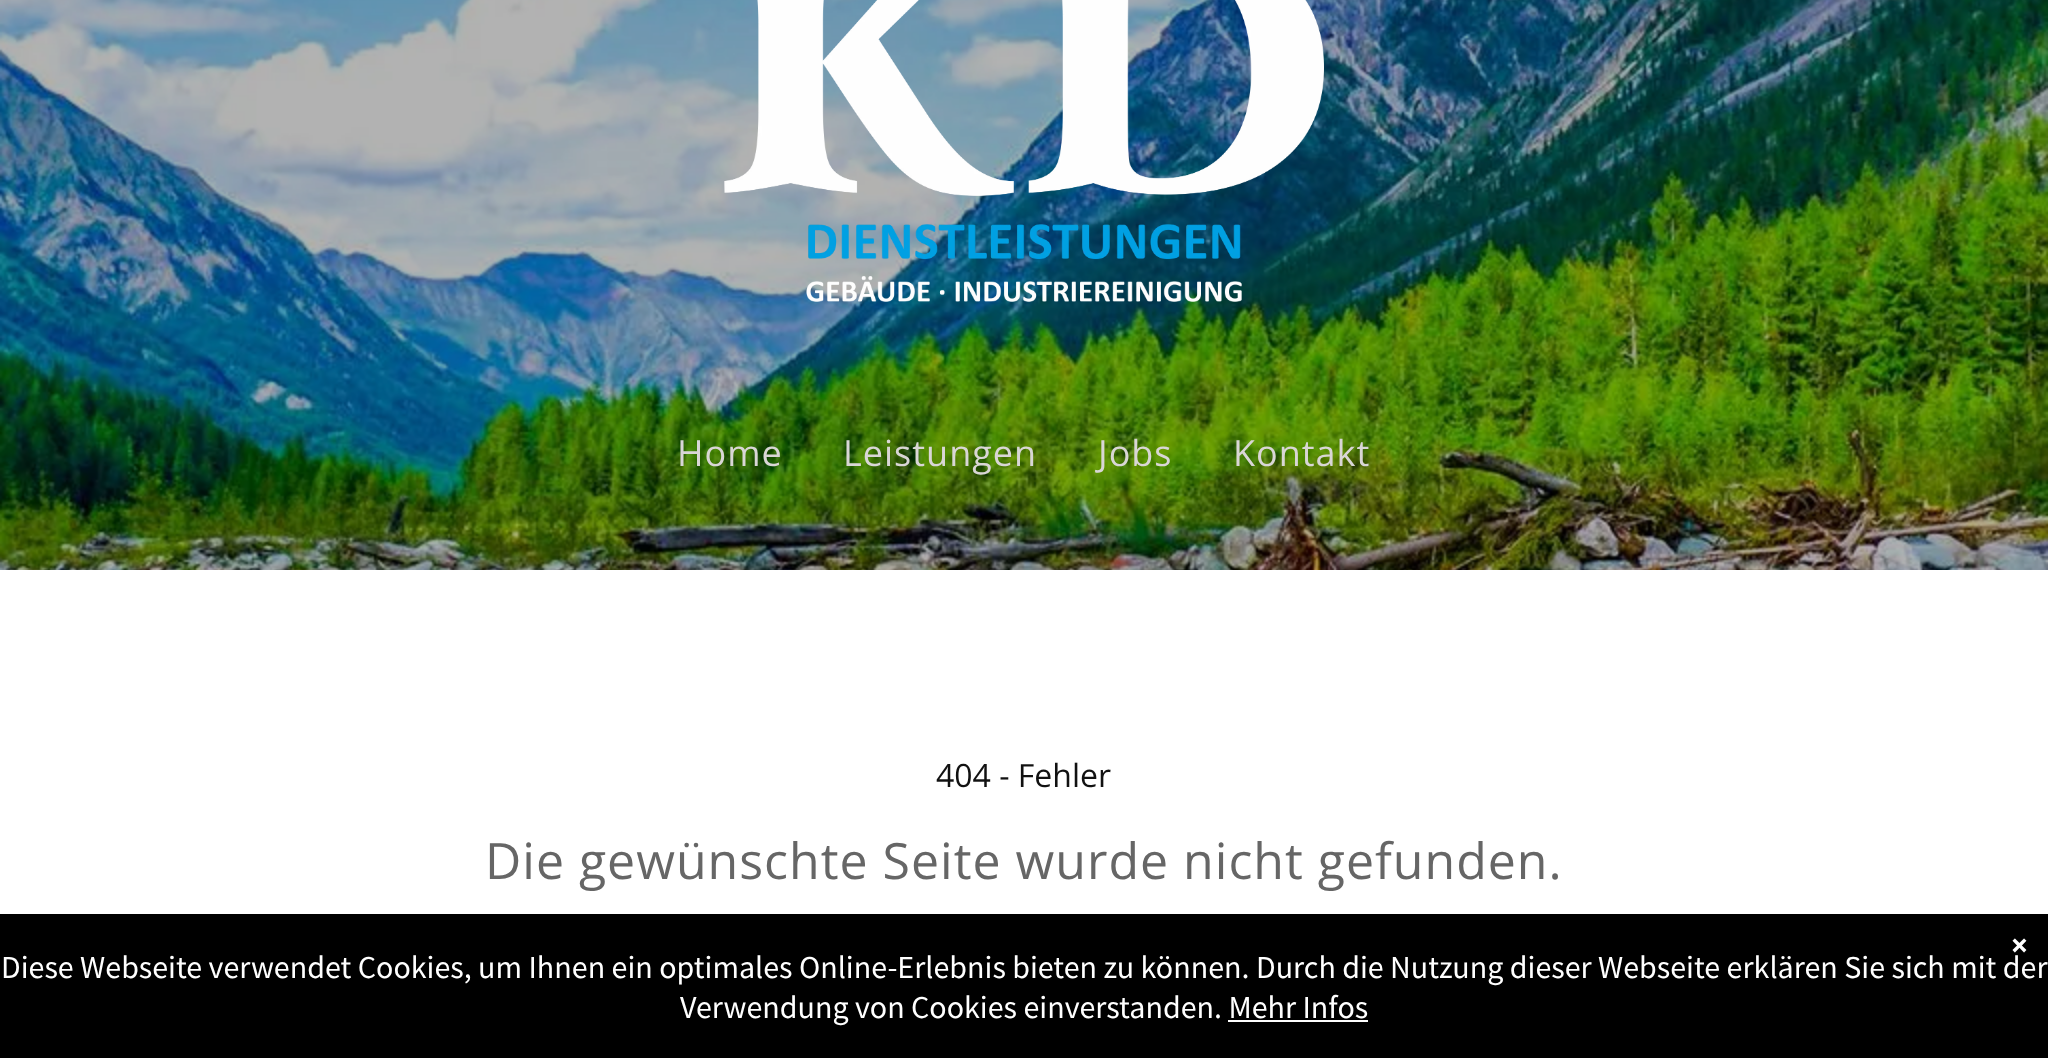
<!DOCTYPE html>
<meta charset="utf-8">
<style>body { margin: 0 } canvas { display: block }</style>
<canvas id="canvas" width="2048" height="1058"></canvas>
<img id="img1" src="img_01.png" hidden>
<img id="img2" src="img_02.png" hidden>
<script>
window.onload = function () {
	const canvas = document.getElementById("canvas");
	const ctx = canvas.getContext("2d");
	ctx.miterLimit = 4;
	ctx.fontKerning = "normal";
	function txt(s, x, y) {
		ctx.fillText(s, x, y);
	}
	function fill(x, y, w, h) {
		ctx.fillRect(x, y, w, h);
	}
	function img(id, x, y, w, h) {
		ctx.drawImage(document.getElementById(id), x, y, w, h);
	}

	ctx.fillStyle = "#FFFFFF";
	fill(0, 0, 2048, 1058);
	img("img1", 0, 0, 2048, 570);
	ctx.fillStyle = "rgba(0, 0, 0, 0.3)";
	fill(0, 0, 2048, 570);
	img("img2", 724, 0, 600, 302);
	ctx.fillStyle = "#000000";
	fill(0, 914, 2048, 144);
	ctx.fillStyle = "#FFFFFF";
	fill(1228, 1020, 140, 2);
	ctx.letterSpacing = "1px";
	ctx.font = "36px Open Sans";
	ctx.fillStyle = "#D9D6D6";
	txt("Home", 677, 466);
	txt("Leistungen", 843, 466);
	txt("Jobs", 1098, 466);
	txt("Kontakt", 1233, 466);
	ctx.letterSpacing = "0px";
	ctx.font = "32px Open Sans";
	ctx.fillStyle = "#111111";
	txt("404 - Fehler", 936, 787);
	ctx.letterSpacing = "1px";
	ctx.font = "50px Open Sans";
	ctx.fillStyle = "#666666";
	txt("Die gewünschte Seite wurde nicht gefunden.", 485, 879);
	ctx.letterSpacing = "0px";
	ctx.font = "bold 32px Source Sans Pro";
	ctx.fillStyle = "#FFFFFF";
	txt("×", 2011, 956);
	ctx.font = "32px Source Sans Pro";
	txt("Diese Webseite verwendet Cookies, um Ihnen ein optimales Online-Erlebnis bieten zu können. Durch die Nutzung dieser Webseite erklären Sie sich mit der", 1, 978);
	txt("Verwendung von Cookies einverstanden. Mehr Infos", 680, 1018);
};
</script>
